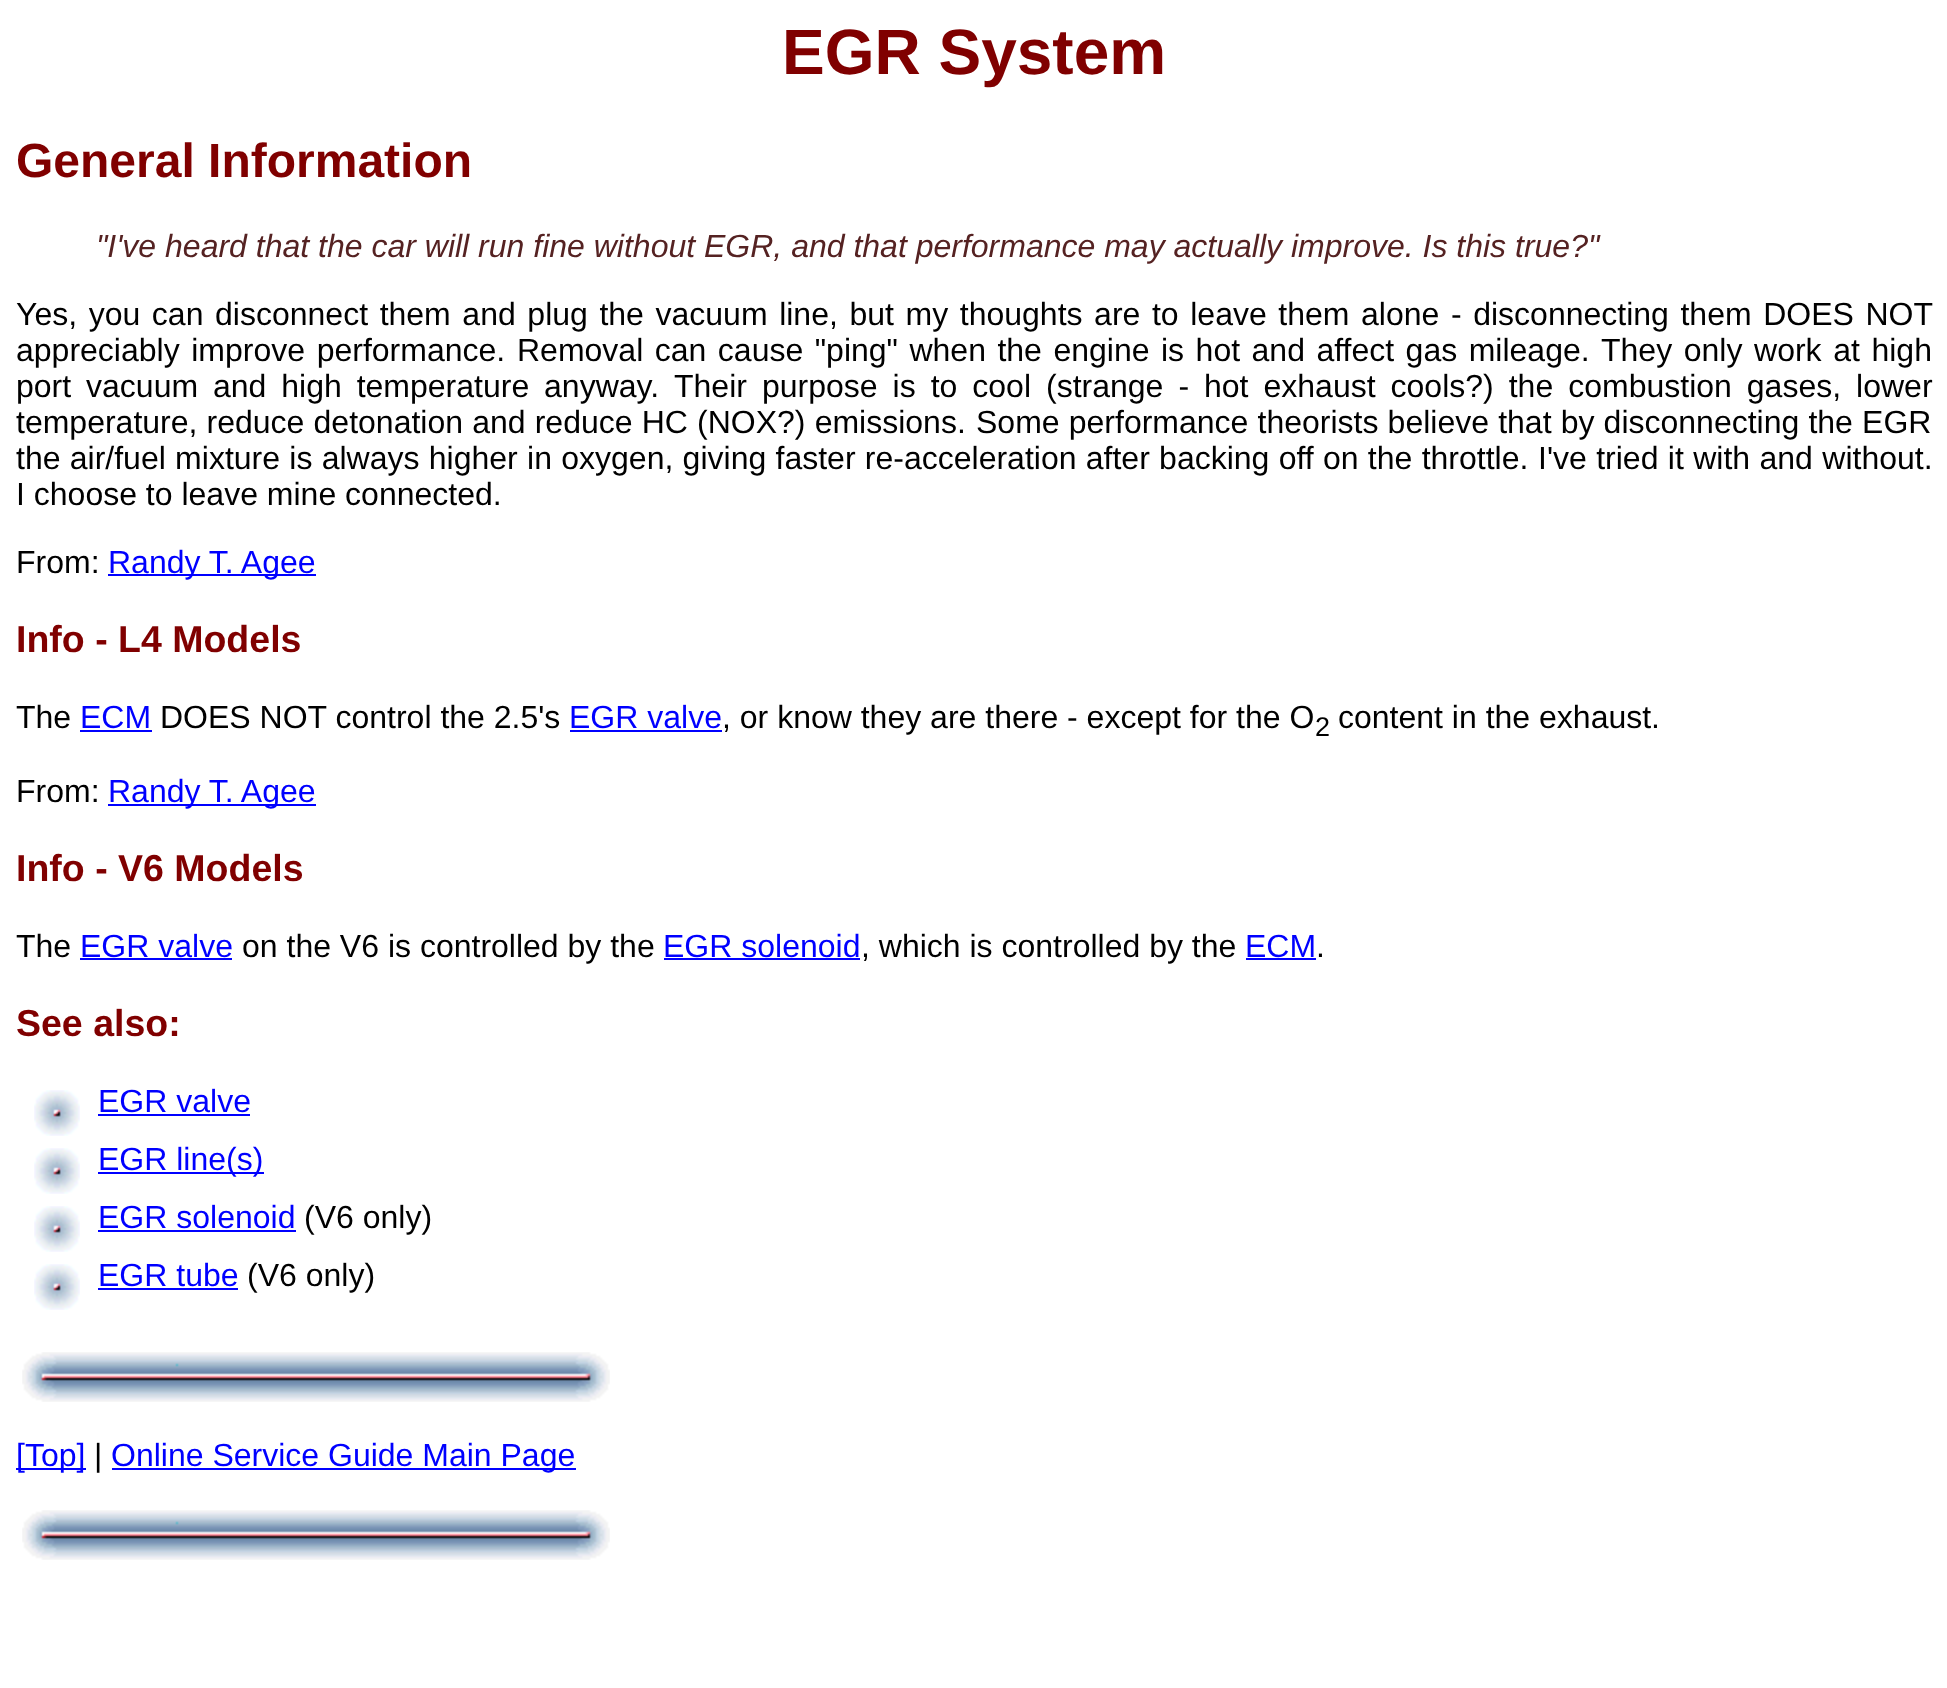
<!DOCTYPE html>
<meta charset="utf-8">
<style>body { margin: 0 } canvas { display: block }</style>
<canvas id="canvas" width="1947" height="1688"></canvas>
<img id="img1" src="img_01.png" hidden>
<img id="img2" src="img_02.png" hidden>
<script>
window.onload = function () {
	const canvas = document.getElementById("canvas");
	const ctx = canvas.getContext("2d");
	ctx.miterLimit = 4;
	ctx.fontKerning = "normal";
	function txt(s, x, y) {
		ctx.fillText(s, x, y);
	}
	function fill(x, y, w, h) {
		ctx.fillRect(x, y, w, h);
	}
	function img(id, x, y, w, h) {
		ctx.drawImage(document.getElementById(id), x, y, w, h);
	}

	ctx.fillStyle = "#FFFFFF";
	fill(0, 0, 1947, 1688);
	ctx.fillStyle = "#0000FF";
	fill(108, 574, 208, 2);
	fill(80, 730, 72, 2);
	fill(570, 730, 152, 2);
	fill(108, 804, 208, 2);
	fill(80, 958, 152, 2);
	fill(664, 958, 196, 2);
	fill(1246, 958, 70, 2);
	img("img1", 34, 1090, 46, 46);
	fill(98, 1114, 152, 2);
	img("img1", 34, 1148, 46, 46);
	fill(98, 1172, 166, 2);
	img("img1", 34, 1206, 46, 46);
	fill(98, 1230, 198, 2);
	img("img1", 34, 1264, 46, 46);
	fill(98, 1288, 140, 2);
	img("img2", 22, 1352, 588, 50);
	fill(16, 1468, 70, 2);
	fill(112, 1468, 464, 2);
	img("img2", 22, 1510, 588, 50);
	ctx.font = "bold 64px Liberation Sans";
	ctx.fillStyle = "#800000";
	txt("EGR System", 782, 74);
	ctx.font = "bold 48px Liberation Sans";
	txt("General Information", 16, 177);
	ctx.font = "italic 32px Liberation Sans";
	ctx.fillStyle = "#552222";
	txt("\"I've heard that the car will run fine without EGR, and that performance may actually improve. Is this true?\"", 96, 257);
	ctx.wordSpacing = "2.7px";
	ctx.font = "32px Liberation Sans";
	ctx.fillStyle = "#000000";
	txt("Yes, you can disconnect them and plug the vacuum line, but my thoughts are to leave them alone - disconnecting them DOES NOT", 16, 325);
	txt("appreciably improve performance.", 16, 361);
	ctx.wordSpacing = "2.6px";
	txt("Removal can cause \"ping\" when the engine is hot and affect gas mileage.", 517, 361);
	ctx.wordSpacing = "2.7px";
	txt("They only work at high", 1601, 361);
	ctx.wordSpacing = "6px";
	txt("port vacuum and high temperature anyway.", 16, 397);
	ctx.wordSpacing = "6.1px";
	txt("Their purpose is to cool (strange - hot exhaust cools?) the combustion gases, lower", 674, 397);
	ctx.wordSpacing = "0.25px";
	txt("temperature, reduce detonation and reduce HC (NOX?) emissions.", 16, 433);
	txt("Some performance theorists believe that by disconnecting the EGR", 976, 433);
	ctx.wordSpacing = "0.4px";
	txt("the air/fuel mixture is always higher in oxygen, giving faster re-acceleration after backing off on the throttle.", 16, 469);
	ctx.wordSpacing = "0.5px";
	txt("I've tried it with and without.", 1538, 469);
	ctx.wordSpacing = "0px";
	txt("I choose to leave mine connected.", 16, 505);
	txt("From:", 16, 573);
	ctx.fillStyle = "#0000FF";
	txt("Randy T. Agee", 108, 573);
	ctx.font = "bold 37.5px Liberation Sans";
	ctx.fillStyle = "#800000";
	txt("Info - L4 Models", 16, 652);
	ctx.font = "32px Liberation Sans";
	ctx.fillStyle = "#000000";
	txt("The", 16, 728);
	ctx.fillStyle = "#0000FF";
	txt("ECM", 80, 728);
	ctx.fillStyle = "#000000";
	txt("DOES NOT control the 2.5's", 160, 728);
	ctx.fillStyle = "#0000FF";
	txt("EGR valve", 569, 728);
	ctx.fillStyle = "#000000";
	txt(", or know they are there - except for the O", 722, 728);
	ctx.font = "27px Liberation Sans";
	txt("2", 1315, 736);
	ctx.font = "32px Liberation Sans";
	txt("content in the exhaust.", 1338, 728);
	txt("From:", 16, 802);
	ctx.fillStyle = "#0000FF";
	txt("Randy T. Agee", 108, 802);
	ctx.font = "bold 37.5px Liberation Sans";
	ctx.fillStyle = "#800000";
	txt("Info - V6 Models", 16, 881);
	ctx.font = "32px Liberation Sans";
	ctx.fillStyle = "#000000";
	txt("The", 16, 957);
	ctx.fillStyle = "#0000FF";
	txt("EGR valve", 80, 957);
	ctx.fillStyle = "#000000";
	txt("on the V6 is controlled by the", 242, 957);
	ctx.fillStyle = "#0000FF";
	txt("EGR solenoid", 663, 957);
	ctx.fillStyle = "#000000";
	txt(", which is controlled by the", 861, 957);
	ctx.fillStyle = "#0000FF";
	txt("ECM", 1245, 957);
	ctx.fillStyle = "#000000";
	txt(".", 1316, 957);
	ctx.font = "bold 37.5px Liberation Sans";
	ctx.fillStyle = "#800000";
	txt("See also:", 16, 1036);
	ctx.font = "32px Liberation Sans";
	ctx.fillStyle = "#0000FF";
	txt("EGR valve", 98, 1112);
	txt("EGR line(s)", 98, 1170);
	txt("EGR solenoid", 98, 1228);
	ctx.fillStyle = "#000000";
	txt("(V6 only)", 304, 1228);
	ctx.fillStyle = "#0000FF";
	txt("EGR tube", 98, 1286);
	ctx.fillStyle = "#000000";
	txt("(V6 only)", 247, 1286);
	ctx.fillStyle = "#0000FF";
	txt("[Top]", 16, 1466);
	ctx.fillStyle = "#000000";
	txt("|", 94, 1466);
	ctx.fillStyle = "#0000FF";
	txt("Online Service Guide Main Page", 111, 1466);
};
</script>
